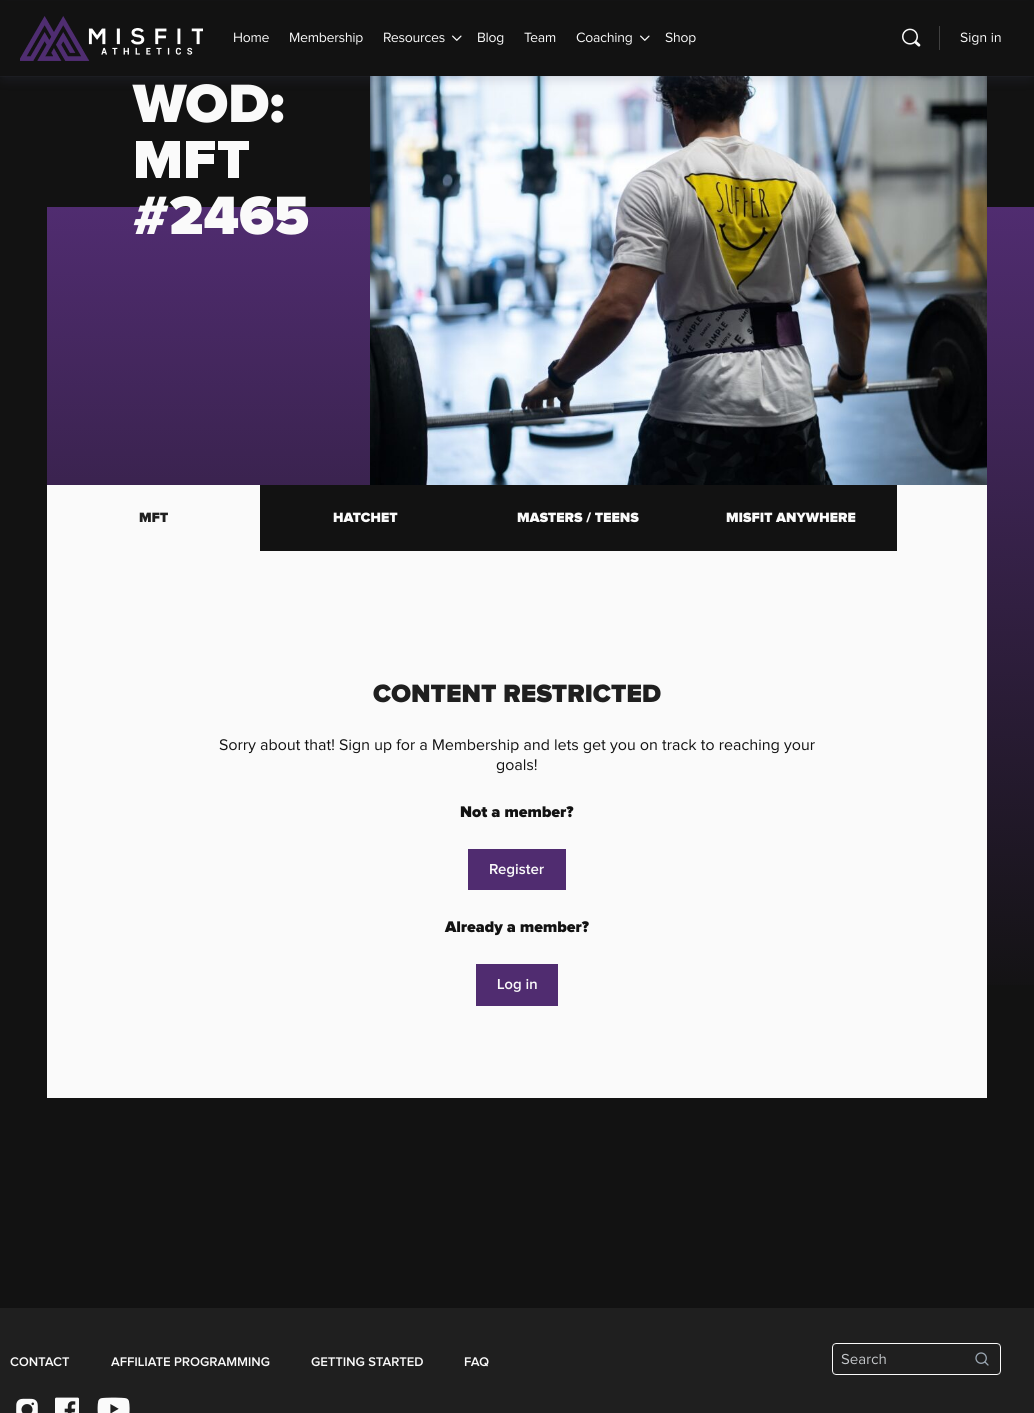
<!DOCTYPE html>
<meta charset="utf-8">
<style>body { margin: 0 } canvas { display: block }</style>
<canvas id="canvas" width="1034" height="1413"></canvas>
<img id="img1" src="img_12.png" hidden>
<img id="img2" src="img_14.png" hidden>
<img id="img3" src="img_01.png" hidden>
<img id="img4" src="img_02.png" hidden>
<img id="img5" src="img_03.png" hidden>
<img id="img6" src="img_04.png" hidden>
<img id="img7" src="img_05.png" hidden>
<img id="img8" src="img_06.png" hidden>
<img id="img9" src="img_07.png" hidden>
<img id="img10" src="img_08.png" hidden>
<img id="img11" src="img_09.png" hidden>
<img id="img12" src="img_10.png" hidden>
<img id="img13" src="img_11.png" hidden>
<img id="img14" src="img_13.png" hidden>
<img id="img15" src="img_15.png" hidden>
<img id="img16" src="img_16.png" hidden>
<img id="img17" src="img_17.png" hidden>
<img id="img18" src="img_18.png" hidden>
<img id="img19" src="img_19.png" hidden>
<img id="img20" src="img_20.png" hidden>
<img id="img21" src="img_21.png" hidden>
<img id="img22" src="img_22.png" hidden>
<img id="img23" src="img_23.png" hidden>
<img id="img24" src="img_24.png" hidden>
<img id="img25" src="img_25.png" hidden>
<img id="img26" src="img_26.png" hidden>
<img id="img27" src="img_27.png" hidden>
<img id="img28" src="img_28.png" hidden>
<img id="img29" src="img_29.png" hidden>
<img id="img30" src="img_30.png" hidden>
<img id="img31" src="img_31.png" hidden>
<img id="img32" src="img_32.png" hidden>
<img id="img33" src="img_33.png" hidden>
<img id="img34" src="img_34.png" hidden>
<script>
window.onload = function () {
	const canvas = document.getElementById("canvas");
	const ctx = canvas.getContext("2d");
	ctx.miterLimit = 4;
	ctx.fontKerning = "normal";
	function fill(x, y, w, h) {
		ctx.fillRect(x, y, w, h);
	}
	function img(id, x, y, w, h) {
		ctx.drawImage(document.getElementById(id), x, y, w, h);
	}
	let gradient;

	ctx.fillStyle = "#121212";
	fill(0, 0, 1034, 1413);
	img("img1", 132, 84, 152, 39);
	gradient = ctx.createLinearGradient(564, 207, 564, 1006);
	gradient.addColorStop(0, "#502C70");
	gradient.addColorStop(1, "#121212");
	ctx.fillStyle = gradient;
	fill(47, 207, 987, 778);
	img("img2", 370, 76, 617, 409);
	ctx.fillStyle = "rgba(65, 71, 108, 0.15)";
	ctx.filter = "blur(5px)";
	ctx.beginPath();
	ctx.rect(0, 5, 1034, 76);
	ctx.fill();
	ctx.filter = "none";
	ctx.fillStyle = "rgba(139, 141, 157, 0.05)";
	fill(0, 76, 1034, 1);
	ctx.fillStyle = "#121212";
	fill(0, 1, 1034, 75);
	img("img3", 20, 16, 183, 45);
	img("img4", 234, 32, 35, 11);
	img("img5", 290, 32, 73, 13);
	img("img6", 384, 32, 61, 11);
	img("img7", 452, 35, 10, 6);
	img("img8", 478, 32, 26, 13);
	img("img9", 524, 32, 32, 11);
	img("img10", 576, 32, 56, 13);
	img("img7", 640, 35, 10, 6);
	img("img11", 665, 32, 31, 13);
	img("img12", 902, 28, 19, 19);
	ctx.fillStyle = "#404040";
	fill(939, 26, 1, 24);
	img("img13", 960, 32, 41, 13);
	ctx.fillStyle = "#FAFAFA";
	ctx.beginPath();
	ctx.moveTo(180, 178);
	ctx.lineTo(169, 178);
	ctx.lineTo(169, 156);
	ctx.lineTo(161, 178);
	ctx.lineTo(156, 178);
	ctx.lineTo(147, 156);
	ctx.lineTo(147, 178);
	ctx.lineTo(136, 178);
	ctx.lineTo(136, 141);
	ctx.lineTo(152, 141);
	ctx.lineTo(158, 159);
	ctx.lineTo(165, 141);
	ctx.lineTo(180, 141);
	ctx.closePath();
	ctx.moveTo(198, 178);
	ctx.lineTo(186, 178);
	ctx.lineTo(186, 141);
	ctx.lineTo(215, 141);
	ctx.lineTo(215, 150);
	ctx.lineTo(198, 150);
	ctx.lineTo(198, 154);
	ctx.lineTo(214, 154);
	ctx.lineTo(214, 164);
	ctx.lineTo(198, 164);
	ctx.closePath();
	ctx.moveTo(239, 178);
	ctx.lineTo(228, 178);
	ctx.lineTo(228, 150);
	ctx.lineTo(218, 150);
	ctx.lineTo(218, 141);
	ctx.lineTo(249, 141);
	ctx.lineTo(249, 150);
	ctx.lineTo(239, 150);
	ctx.closePath();
	ctx.fill();
	img("img14", 133, 196, 176, 39);
	fill(47, 485, 940, 613);
	img("img15", 139, 512, 29, 10);
	ctx.fillStyle = "#121212";
	fill(260, 485, 637, 66);
	img("img16", 333, 512, 65, 11);
	img("img17", 517, 512, 122, 11);
	img("img18", 726, 512, 130, 11);
	img("img19", 373, 684, 288, 19);
	img("img20", 219, 739, 596, 15);
	img("img21", 496, 759, 41, 15);
	img("img22", 460, 806, 114, 12);
	ctx.fillStyle = "#502C70";
	fill(468, 849, 98, 41);
	img("img23", 490, 863, 54, 14);
	img("img24", 444, 921, 145, 15);
	fill(476, 964, 82, 42);
	img("img25", 497, 978, 40, 14);
	ctx.fillStyle = "#1F1F1F";
	fill(0, 1308, 1034, 105);
	img("img26", 10, 1357, 60, 10);
	img("img27", 111, 1357, 159, 10);
	img("img28", 311, 1357, 112, 10);
	img("img29", 464, 1357, 25, 10);
	img("img30", 975, 1352, 14, 14);
	ctx.beginPath();
	ctx.roundRect(832.5, 1343.5, 168, 31, 3.5);
	ctx.strokeStyle = "#FAFAFA";
	ctx.stroke();
	img("img31", 841, 1353, 45, 12);
	img("img32", 16, 1398, 22, 15);
	img("img33", 55, 1397, 24, 16);
	img("img34", 97, 1397, 33, 16);
};
</script>
